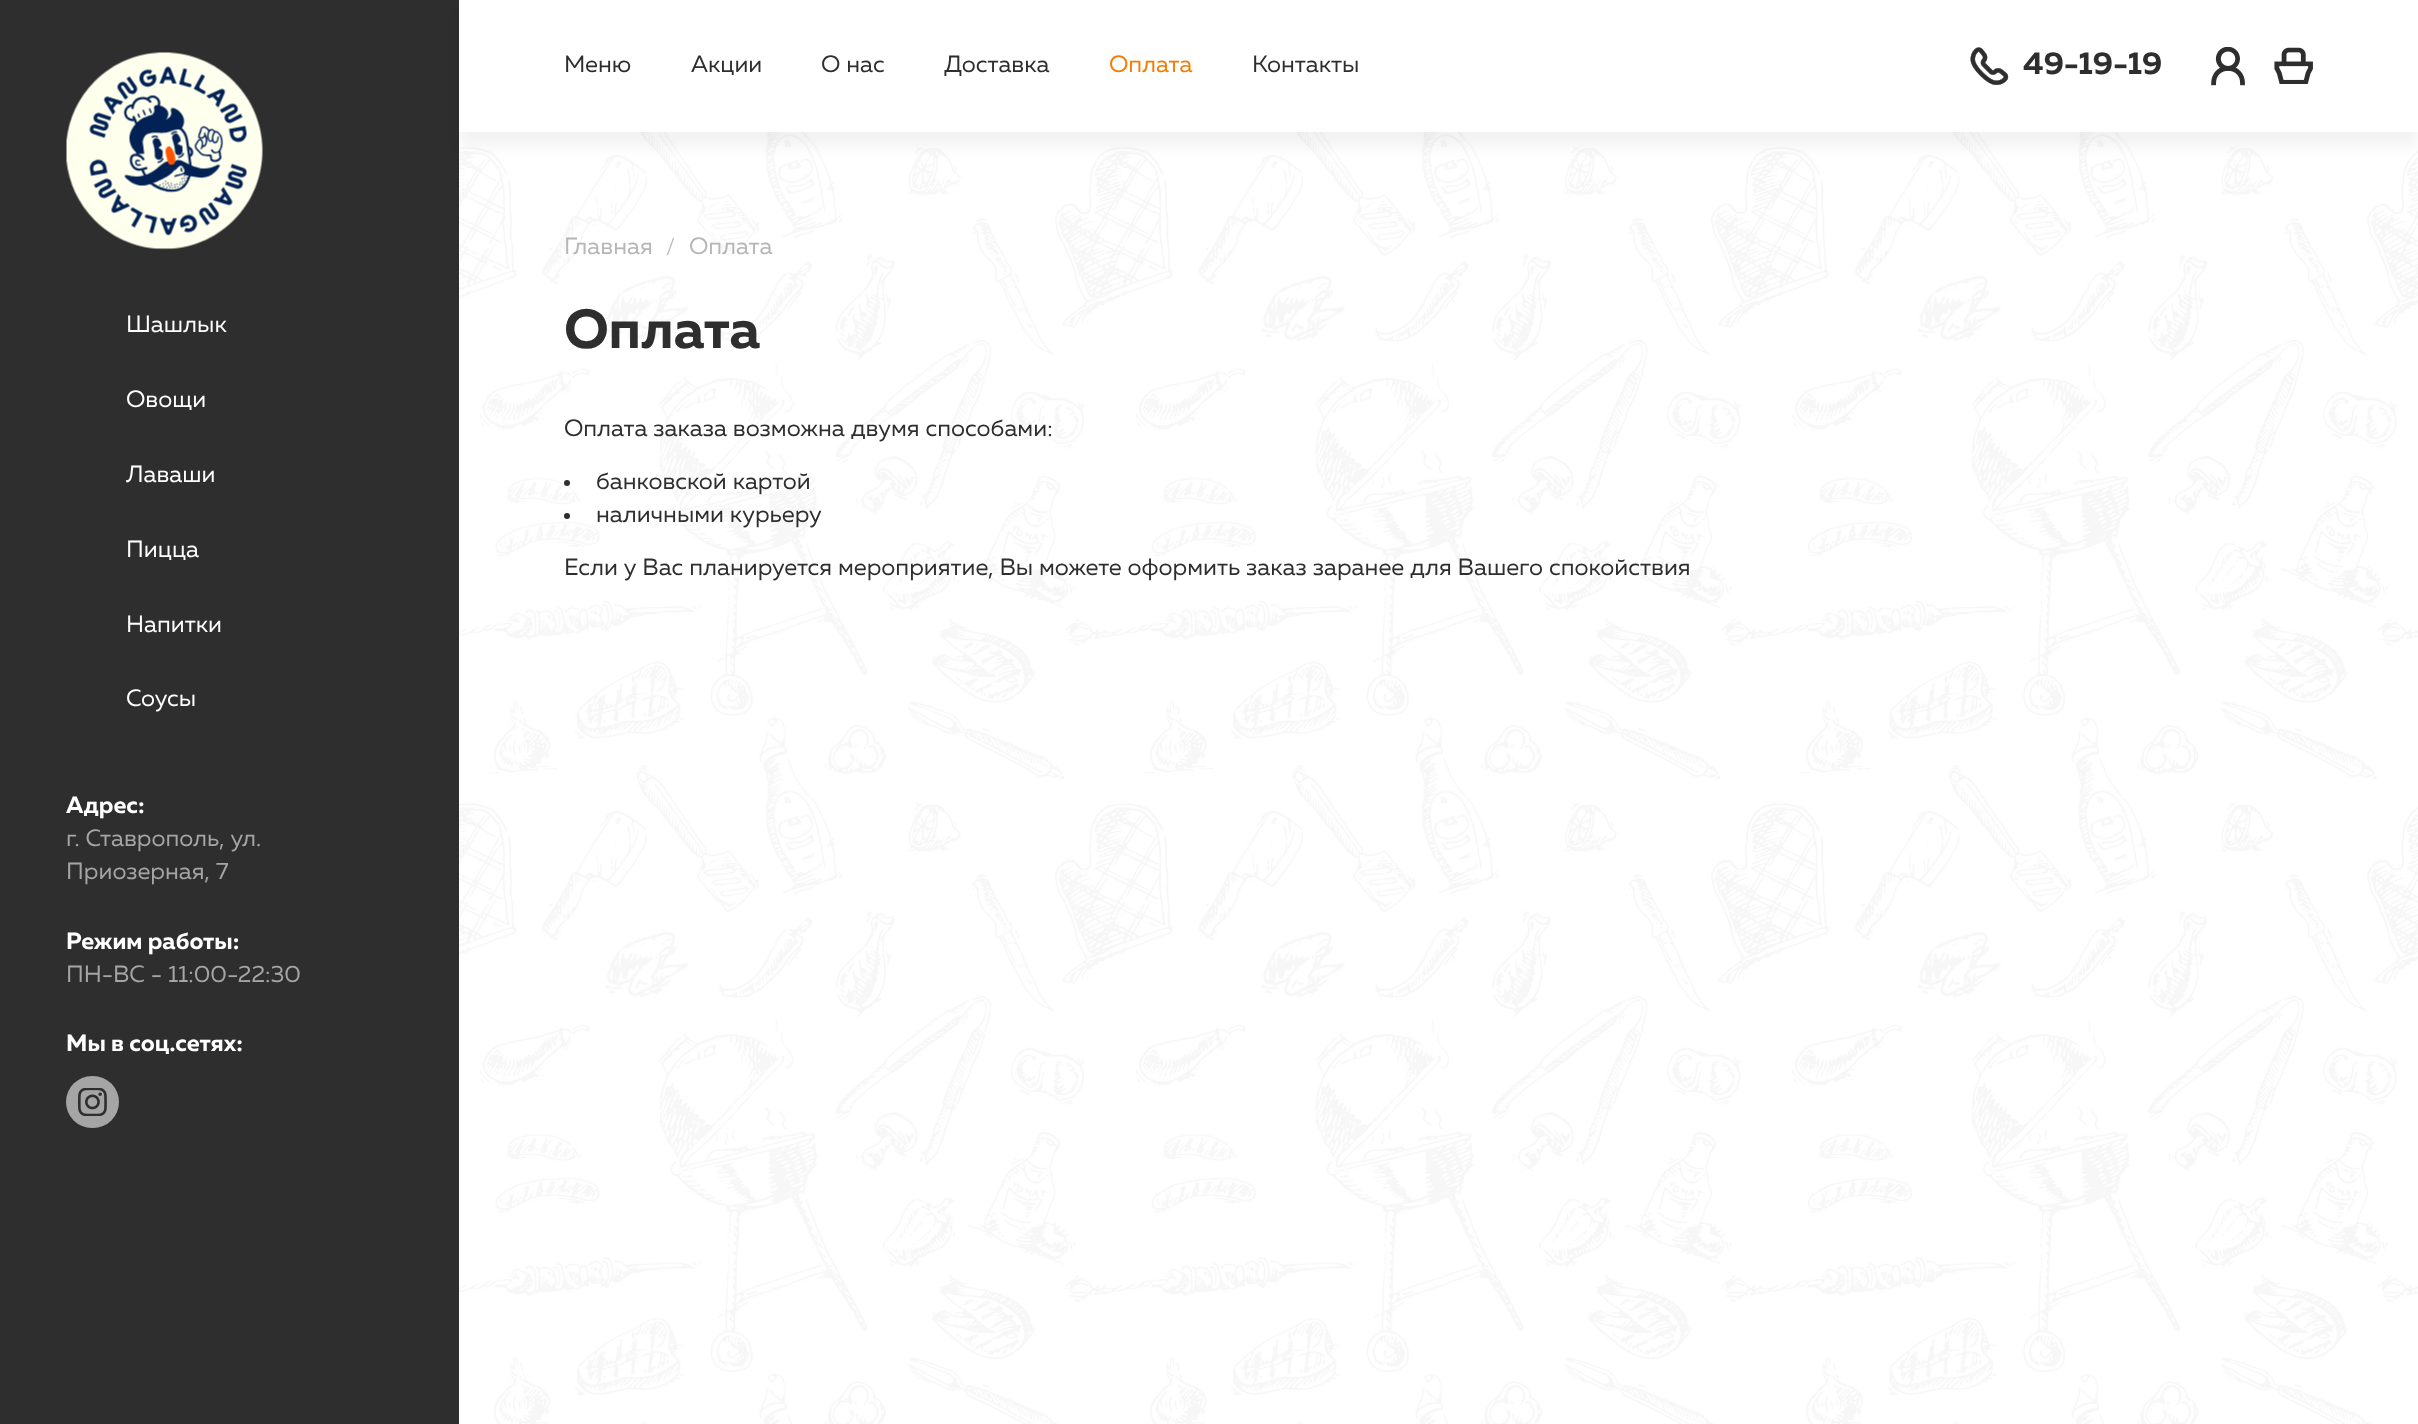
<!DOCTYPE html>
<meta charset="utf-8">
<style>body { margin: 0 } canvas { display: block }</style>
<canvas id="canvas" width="2418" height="1424"></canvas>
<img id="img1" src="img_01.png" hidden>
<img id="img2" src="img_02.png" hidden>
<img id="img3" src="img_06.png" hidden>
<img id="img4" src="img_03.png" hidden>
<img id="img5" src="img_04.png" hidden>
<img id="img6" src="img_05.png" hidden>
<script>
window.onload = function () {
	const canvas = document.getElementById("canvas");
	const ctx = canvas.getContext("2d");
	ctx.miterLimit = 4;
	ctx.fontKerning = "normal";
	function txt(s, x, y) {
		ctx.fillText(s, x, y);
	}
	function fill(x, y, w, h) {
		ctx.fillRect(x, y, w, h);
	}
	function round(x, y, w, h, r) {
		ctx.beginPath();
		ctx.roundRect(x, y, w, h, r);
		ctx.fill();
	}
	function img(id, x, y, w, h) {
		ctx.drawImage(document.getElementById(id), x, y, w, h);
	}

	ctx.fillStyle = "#FFFFFF";
	fill(0, 0, 2418, 1424);
	ctx.fillStyle = "#2E2E2E";
	fill(0, 0, 459, 1424);
	img("img1", 66, 52, 197, 198);
	ctx.fillStyle = "#A5A5A5";
	round(66, 1076, 53, 52, 26);
	img("img2", 78, 1088, 29, 28);
	img("img3", 459, 132, 1959, 1292);
	ctx.save();
	ctx.beginPath();
	ctx.moveTo(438, 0);
	ctx.lineTo(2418, 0);
	ctx.lineTo(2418, 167);
	ctx.lineTo(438, 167);
	ctx.closePath();
	ctx.moveTo(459, 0);
	ctx.lineTo(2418, 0);
	ctx.lineTo(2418, 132);
	ctx.lineTo(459, 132);
	ctx.closePath();
	ctx.clip("evenodd");
	ctx.fillStyle = "rgba(0, 0, 0, 0.05)";
	ctx.filter = "blur(6.5px)";
	ctx.beginPath();
	ctx.rect(459, 14, 1959, 132);
	ctx.fill();
	ctx.filter = "none";
	ctx.restore();
	img("img4", 1970, 47, 39, 38);
	img("img5", 2211, 47, 34, 39);
	img("img6", 2274, 47, 39, 37);
	ctx.fillStyle = "#2E2E2E";
	ctx.beginPath();
	ctx.arc(567, 483, 3, 0, Math.PI * 2);
	ctx.fill();
	ctx.beginPath();
	ctx.arc(567, 516, 3, 0, Math.PI * 2);
	ctx.fill();
	ctx.font = "23.6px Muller";
	ctx.fillStyle = "#FFFFFF";
	txt("Шашлык", 126, 332);
	txt("Овощи", 126, 407);
	txt("Лаваши", 126, 482);
	txt("Пицца", 126, 557);
	txt("Напитки", 126, 632);
	txt("Соусы", 126, 706);
	ctx.font = "bold 23.6px Muller";
	txt("Адрес:", 66, 813);
	ctx.font = "23.6px Muller";
	ctx.fillStyle = "#A5A5A5";
	txt("г. Ставрополь, ул.", 66, 846);
	txt("Приозерная, 7", 66, 879);
	ctx.font = "bold 23.6px Muller";
	ctx.fillStyle = "#FFFFFF";
	txt("Режим работы:", 66, 949);
	ctx.font = "23.6px Muller";
	ctx.fillStyle = "#A5A5A5";
	txt("ПН-ВС - 11:00-22:30", 66, 982);
	ctx.font = "bold 23.6px Muller";
	ctx.fillStyle = "#FFFFFF";
	txt("Мы в соц.сетях:", 66, 1051);
	ctx.font = "23.6px Muller";
	ctx.fillStyle = "#2E2E2E";
	txt("Меню", 564, 72);
	txt("Акции", 691, 72);
	txt("О нас", 821, 72);
	txt("Доставка", 944, 72);
	ctx.fillStyle = "#F57C00";
	txt("Оплата", 1109, 72);
	ctx.fillStyle = "#2E2E2E";
	txt("Контакты", 1252, 72);
	ctx.font = "bold 31.5px Muller";
	txt("49-19-19", 2023, 74);
	ctx.font = "23.6px Muller";
	ctx.fillStyle = "#B6B6B6";
	txt("Главная", 564, 254);
	ctx.font = "21px Muller";
	txt("/", 666, 254);
	ctx.font = "23.6px Muller";
	txt("Оплата", 689, 254);
	ctx.font = "bold 55px Muller";
	ctx.fillStyle = "#2E2E2E";
	txt("Оплата", 564, 348);
	ctx.font = "23.6px Muller";
	txt("Оплата заказа возможна двумя способами:", 564, 436);
	txt("банковской картой", 596, 489);
	txt("наличными курьеру", 596, 522);
	txt("Если у Вас планируется мероприятие, Вы можете оформить заказ заранее для Вашего спокойствия", 564, 575);
};
</script>
